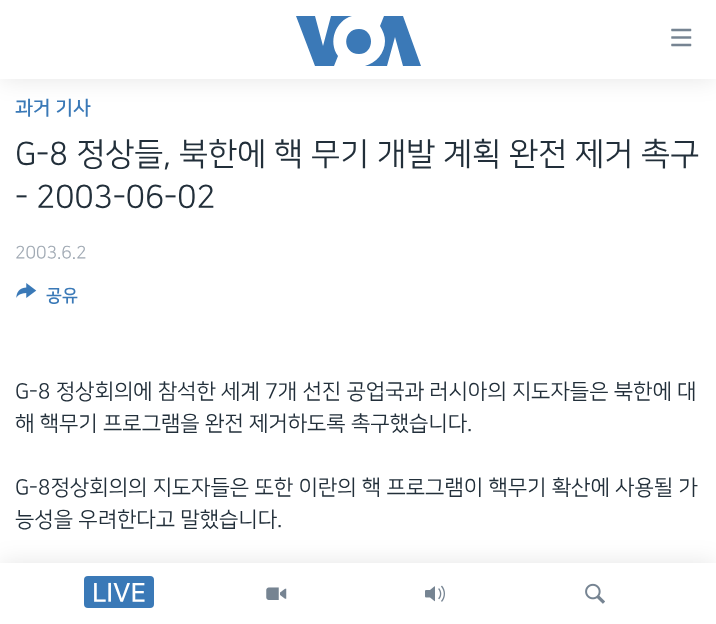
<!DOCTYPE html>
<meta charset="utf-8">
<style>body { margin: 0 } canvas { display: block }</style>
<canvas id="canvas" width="716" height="624"></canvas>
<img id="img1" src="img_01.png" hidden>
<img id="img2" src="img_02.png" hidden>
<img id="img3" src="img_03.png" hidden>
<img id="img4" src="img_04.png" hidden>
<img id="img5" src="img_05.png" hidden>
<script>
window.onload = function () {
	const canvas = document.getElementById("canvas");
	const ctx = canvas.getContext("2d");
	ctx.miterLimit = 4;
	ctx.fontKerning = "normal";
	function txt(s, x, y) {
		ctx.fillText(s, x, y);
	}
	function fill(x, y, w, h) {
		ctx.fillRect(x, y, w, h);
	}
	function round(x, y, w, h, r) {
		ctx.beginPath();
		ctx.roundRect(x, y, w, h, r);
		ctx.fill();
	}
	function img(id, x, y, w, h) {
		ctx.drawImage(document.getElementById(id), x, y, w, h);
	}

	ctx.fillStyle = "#FFFFFF";
	fill(0, 0, 716, 624);
	img("img1", 16, 283, 21, 15);
	ctx.fillStyle = "rgba(0, 0, 0, 0.1)";
	ctx.filter = "blur(12.5px)";
	ctx.beginPath();
	ctx.rect(0, 0, 716, 79);
	ctx.fill();
	ctx.filter = "none";
	ctx.fillStyle = "#FFFFFF";
	fill(0, 0, 716, 79);
	ctx.fillStyle = "#3B79B7";
	ctx.beginPath();
	ctx.moveTo(338, 56);
	ctx.lineTo(334, 66);
	ctx.lineTo(315, 66);
	ctx.lineTo(296, 16);
	ctx.lineTo(315, 16);
	ctx.lineTo(323, 46);
	ctx.lineTo(331, 16);
	ctx.lineTo(352, 16);
	ctx.bezierCurveTo(335, 21, 328, 42, 338, 56);
	ctx.closePath();
	ctx.moveTo(359, 29);
	ctx.bezierCurveTo(342, 29, 342, 54, 359, 54);
	ctx.bezierCurveTo(375, 54, 375, 29, 359, 29);
	ctx.closePath();
	ctx.moveTo(385, 41);
	ctx.bezierCurveTo(385, 53, 376, 63, 365, 66);
	ctx.lineTo(387, 66);
	ctx.lineTo(395, 37);
	ctx.lineTo(403, 66);
	ctx.lineTo(421, 66);
	ctx.lineTo(403, 16);
	ctx.lineTo(384, 16);
	ctx.lineTo(380, 26);
	ctx.bezierCurveTo(383, 31, 385, 36, 385, 41);
	ctx.closePath();
	ctx.fill();
	img("img2", 671, 28, 21, 19);
	ctx.fillStyle = "rgba(0, 0, 0, 0.1)";
	ctx.filter = "blur(12.5px)";
	ctx.beginPath();
	ctx.rect(0, 563, 716, 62);
	ctx.fill();
	ctx.filter = "none";
	ctx.fillStyle = "#FFFFFF";
	fill(0, 563, 716, 61);
	ctx.fillStyle = "#3A79B7";
	round(84, 576, 70, 32, 4);
	img("img3", 266, 587, 21, 13);
	img("img4", 425, 585, 20, 17);
	img("img5", 585, 583, 20, 21);
	ctx.font = "bold 19.5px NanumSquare";
	txt("과거 기사", 15, 114);
	ctx.font = "31.9px NanumSquare";
	ctx.fillStyle = "#222F3A";
	txt("G-8 정상들, 북한에 핵 무기 개발 계획 완전 제거 촉구", 15, 164);
	txt("- 2003-06-02", 15, 207);
	ctx.font = "17.5px NanumSquare";
	ctx.fillStyle = "#A1AAB4";
	txt("2003.6.2", 15, 258);
	ctx.font = "bold 17.5px NanumSquare";
	ctx.fillStyle = "#3A79B7";
	txt("공유", 46, 301);
	ctx.font = "21.25px NanumSquare";
	ctx.fillStyle = "#222F3A";
	txt("G-8 정상회의에 참석한 세계 7개 선진 공업국과 러시아의 지도자들은 북한에 대", 15, 398);
	txt("해 핵무기 프로그램을 완전 제거하도록 촉구했습니다.", 15, 430);
	txt("G-8정상회의의 지도자들은 또한 이란의 핵 프로그램이 핵무기 확산에 사용될 가", 15, 494);
	txt("능성을 우려한다고 말했습니다.", 15, 526);
	ctx.font = "bold 26px NanumSquare";
	ctx.fillStyle = "#FFFFFF";
	txt("LIVE", 92, 601);
};
</script>
